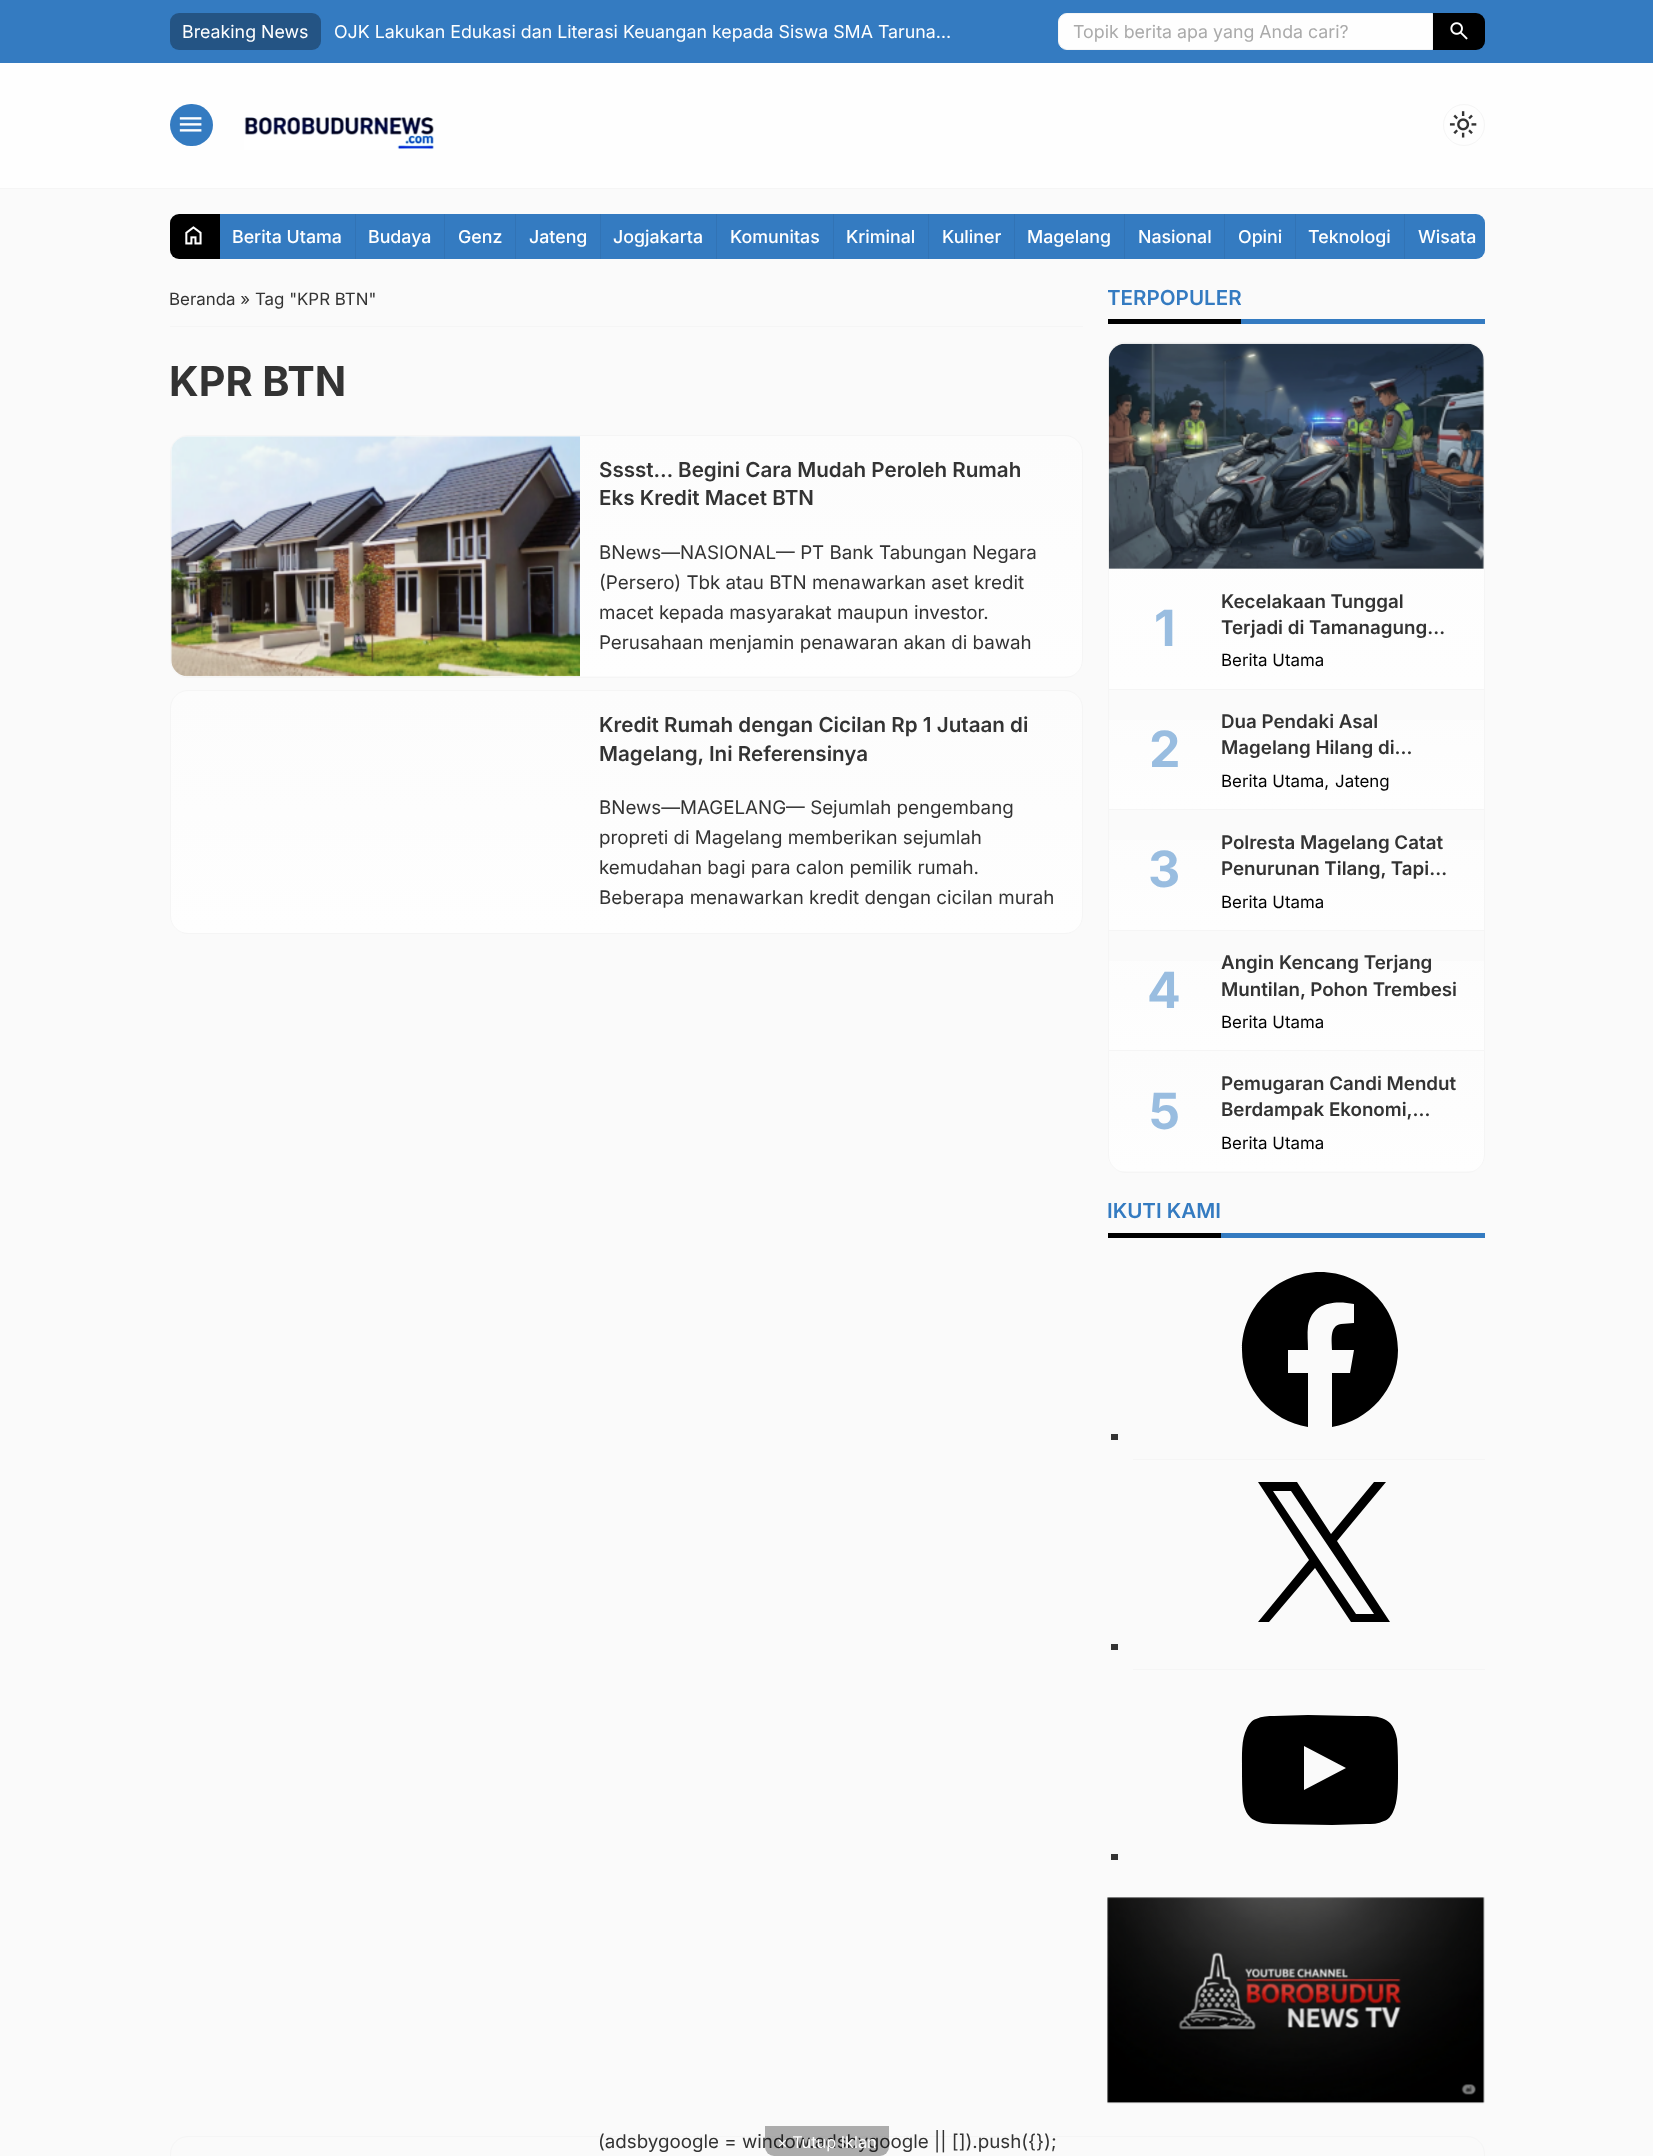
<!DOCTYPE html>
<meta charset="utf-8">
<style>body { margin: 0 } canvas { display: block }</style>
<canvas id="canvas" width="1653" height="2156"></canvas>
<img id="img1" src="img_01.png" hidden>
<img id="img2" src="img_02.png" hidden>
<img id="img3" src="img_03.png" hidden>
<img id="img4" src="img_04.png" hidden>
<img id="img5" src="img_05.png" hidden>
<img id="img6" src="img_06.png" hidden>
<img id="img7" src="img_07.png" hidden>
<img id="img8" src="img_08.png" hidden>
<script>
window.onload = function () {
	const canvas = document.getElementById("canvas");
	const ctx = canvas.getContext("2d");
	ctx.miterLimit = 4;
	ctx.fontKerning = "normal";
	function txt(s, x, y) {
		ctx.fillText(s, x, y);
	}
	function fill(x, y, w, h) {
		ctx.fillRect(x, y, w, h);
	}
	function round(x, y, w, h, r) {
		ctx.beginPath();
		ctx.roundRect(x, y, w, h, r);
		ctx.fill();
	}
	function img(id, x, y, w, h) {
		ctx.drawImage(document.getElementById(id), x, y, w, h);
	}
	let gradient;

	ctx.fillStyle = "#FAFAFA";
	fill(0, 0, 1653, 2156);
	ctx.fillStyle = "#347BC1";
	fill(0, 0, 1653, 63);
	ctx.fillStyle = "#245484";
	round(170, 13, 151, 37, 9);
	ctx.fillStyle = "#FEFEFE";
	ctx.beginPath();
	ctx.roundRect(1058.5, 13.5, 374, 36, [8.5, 0, 0, 8.5]);
	ctx.fill();
	ctx.strokeStyle = "#F5F5F5";
	ctx.stroke();
	ctx.fillStyle = "#000000";
	ctx.beginPath();
	ctx.roundRect(1433, 13, 52, 37, [0, 9, 9, 0]);
	ctx.fill();
	img("img1", 1450, 22, 18, 18);
	ctx.fillStyle = "#FEFEFE";
	fill(0, 63, 1653, 125);
	ctx.fillStyle = "#F5F5F5";
	fill(0, 188, 1653, 1);
	ctx.fillStyle = "#347BC1";
	round(170, 104, 43, 42, 21);
	img("img2", 179, 117, 23, 15);
	img("img3", 244, 117, 190, 33);
	ctx.beginPath();
	ctx.arc(1464, 125, 20.5, 0, Math.PI * 2);
	ctx.stroke();
	img("img4", 1449, 111, 28, 27);
	ctx.fillStyle = "#000000";
	ctx.beginPath();
	ctx.roundRect(170, 214, 50, 45, [9, 0, 0, 9]);
	ctx.fill();
	img("img5", 185, 226, 17, 19);
	ctx.fillStyle = "#347BC1";
	ctx.beginPath();
	ctx.roundRect(220, 214, 1265, 45, [0, 9, 9, 0]);
	ctx.fill();
	ctx.fillStyle = "#3173B5";
	fill(355, 214, 1, 45);
	fill(444, 214, 1, 45);
	fill(515, 214, 1, 45);
	fill(600, 214, 1, 45);
	fill(716, 214, 1, 45);
	fill(833, 214, 1, 45);
	fill(928, 214, 1, 45);
	fill(1014, 214, 1, 45);
	fill(1124, 214, 1, 45);
	fill(1224, 214, 1, 45);
	fill(1295, 214, 1, 45);
	fill(1404, 214, 1, 45);
	ctx.fillStyle = "#F5F5F5";
	fill(170, 326, 913, 1);
	ctx.save();
	ctx.beginPath();
	ctx.roundRect(170, 435, 913, 243, 18);
	ctx.clip();
	gradient = ctx.createLinearGradient(626, 436, 626, 676);
	gradient.addColorStop(0, "#FCFCFC");
	gradient.addColorStop(1, "#FEFEFE");
	ctx.fillStyle = gradient;
	fill(170, 436, 913, 240);
	ctx.restore();
	ctx.beginPath();
	ctx.roundRect(170.5, 435.5, 912, 242, 17.5);
	ctx.stroke();
	img("img6", 171, 436, 409, 241);
	ctx.save();
	ctx.beginPath();
	ctx.roundRect(170, 690, 913, 244, 18);
	ctx.clip();
	gradient = ctx.createLinearGradient(626, 691, 626, 933);
	gradient.addColorStop(0, "#FCFCFC");
	gradient.addColorStop(1, "#FEFEFE");
	ctx.fillStyle = gradient;
	fill(170, 691, 913, 242);
	ctx.restore();
	ctx.beginPath();
	ctx.roundRect(170.5, 690.5, 912, 243, 17.5);
	ctx.stroke();
	ctx.fillStyle = "#000000";
	fill(1108, 319, 133, 5);
	ctx.fillStyle = "#347BC1";
	fill(1241, 319, 244, 5);
	gradient = ctx.createLinearGradient(1296, 344, 1296, 689);
	gradient.addColorStop(0, "#FCFCFC");
	gradient.addColorStop(1, "#FEFEFE");
	ctx.fillStyle = gradient;
	ctx.beginPath();
	ctx.roundRect(1109, 344, 375, 345, [16, 16, 0, 0]);
	ctx.fill();
	ctx.fillStyle = "#F5F5F5";
	ctx.beginPath();
	ctx.moveTo(1125, 342);
	ctx.lineTo(1468, 342);
	ctx.bezierCurveTo(1477, 342, 1485, 350, 1485, 360);
	ctx.lineTo(1485, 689);
	ctx.lineTo(1108, 689);
	ctx.lineTo(1108, 360);
	ctx.bezierCurveTo(1108, 350, 1115, 342, 1125, 342);
	ctx.closePath();
	ctx.moveTo(1125, 344);
	ctx.lineTo(1468, 344);
	ctx.bezierCurveTo(1476, 344, 1484, 351, 1484, 360);
	ctx.lineTo(1484, 689);
	ctx.lineTo(1109, 689);
	ctx.lineTo(1109, 360);
	ctx.bezierCurveTo(1109, 351, 1116, 344, 1125, 344);
	ctx.closePath();
	ctx.fill("evenodd");
	img("img7", 1108, 343, 376, 226);
	gradient = ctx.createLinearGradient(1296, 690, 1296, 809);
	gradient.addColorStop(0, "#FCFCFC");
	gradient.addColorStop(1, "#FEFEFE");
	ctx.fillStyle = gradient;
	fill(1109, 720, 375, 89);
	ctx.fillStyle = "#F5F5F5";
	fill(1108, 689, 377, 1);
	fill(1484, 689, 1, 120);
	fill(1108, 689, 1, 120);
	gradient = ctx.createLinearGradient(1296, 810, 1296, 930);
	gradient.addColorStop(0, "#FCFCFC");
	gradient.addColorStop(1, "#FEFEFE");
	ctx.fillStyle = gradient;
	fill(1109, 840, 375, 90);
	ctx.fillStyle = "#F5F5F5";
	fill(1108, 809, 377, 1);
	fill(1484, 809, 1, 121);
	fill(1108, 809, 1, 121);
	gradient = ctx.createLinearGradient(1296, 931, 1296, 1050);
	gradient.addColorStop(0, "#FCFCFC");
	gradient.addColorStop(1, "#FEFEFE");
	ctx.fillStyle = gradient;
	fill(1109, 961, 375, 89);
	ctx.fillStyle = "#F5F5F5";
	fill(1108, 930, 377, 1);
	fill(1484, 930, 1, 120);
	fill(1108, 930, 1, 120);
	ctx.save();
	ctx.beginPath();
	ctx.roundRect(1108, 1050, 377, 123, [0, 0, 18, 18]);
	ctx.clip();
	gradient = ctx.createLinearGradient(1296, 1051, 1296, 1171);
	gradient.addColorStop(0, "#FCFCFC");
	gradient.addColorStop(1, "#FEFEFE");
	ctx.fillStyle = gradient;
	fill(1108, 1051, 377, 120);
	ctx.restore();
	ctx.beginPath();
	ctx.roundRect(1108.5, 1050.5, 376, 122, [0, 0, 17.5, 17.5]);
	ctx.stroke();
	ctx.fillStyle = "#000000";
	fill(1108, 1233, 113, 5);
	ctx.fillStyle = "#347BC1";
	fill(1221, 1233, 264, 5);
	ctx.fillStyle = "#F5F5F5";
	fill(1133, 1459, 352, 1);
	ctx.fillStyle = "#000000";
	ctx.beginPath();
	ctx.moveTo(1320, 1272);
	ctx.bezierCurveTo(1277, 1272, 1242, 1307, 1242, 1350);
	ctx.bezierCurveTo(1242, 1389, 1271, 1421, 1308, 1427);
	ctx.lineTo(1308, 1373);
	ctx.lineTo(1288, 1373);
	ctx.lineTo(1288, 1350);
	ctx.lineTo(1308, 1350);
	ctx.bezierCurveTo(1308, 1342, 1307, 1334, 1308, 1326);
	ctx.bezierCurveTo(1312, 1302, 1335, 1300, 1354, 1304);
	ctx.lineTo(1354, 1323);
	ctx.lineTo(1341, 1324);
	ctx.bezierCurveTo(1329, 1326, 1332, 1341, 1332, 1350);
	ctx.lineTo(1354, 1350);
	ctx.lineTo(1350, 1373);
	ctx.lineTo(1332, 1373);
	ctx.lineTo(1332, 1427);
	ctx.bezierCurveTo(1369, 1421, 1398, 1389, 1398, 1350);
	ctx.bezierCurveTo(1398, 1307, 1363, 1272, 1320, 1272);
	ctx.closePath();
	ctx.fill();
	ctx.fillStyle = "#333333";
	fill(1111, 1434, 7, 6);
	ctx.fillStyle = "#F5F5F5";
	fill(1133, 1669, 352, 1);
	ctx.fillStyle = "#000000";
	ctx.beginPath();
	ctx.moveTo(1337, 1541);
	ctx.lineTo(1386, 1482);
	ctx.lineTo(1374, 1482);
	ctx.lineTo(1331, 1534);
	ctx.lineTo(1297, 1482);
	ctx.lineTo(1258, 1482);
	ctx.lineTo(1309, 1560);
	ctx.lineTo(1258, 1622);
	ctx.lineTo(1269, 1622);
	ctx.lineTo(1315, 1568);
	ctx.lineTo(1351, 1622);
	ctx.lineTo(1390, 1622);
	ctx.closePath();
	ctx.moveTo(1320, 1561);
	ctx.lineTo(1273, 1491);
	ctx.lineTo(1291, 1491);
	ctx.lineTo(1374, 1614);
	ctx.lineTo(1356, 1614);
	ctx.closePath();
	ctx.fill();
	ctx.fillStyle = "#333333";
	fill(1111, 1644, 7, 6);
	ctx.fillStyle = "#000000";
	ctx.beginPath();
	ctx.moveTo(1397, 1739);
	ctx.bezierCurveTo(1393, 1715, 1377, 1716, 1357, 1716);
	ctx.lineTo(1308, 1715);
	ctx.lineTo(1274, 1716);
	ctx.bezierCurveTo(1268, 1716, 1262, 1716, 1256, 1719);
	ctx.bezierCurveTo(1252, 1720, 1249, 1724, 1247, 1728);
	ctx.bezierCurveTo(1241, 1739, 1242, 1756, 1242, 1768);
	ctx.bezierCurveTo(1242, 1779, 1242, 1790, 1243, 1801);
	ctx.bezierCurveTo(1246, 1820, 1256, 1823, 1273, 1824);
	ctx.lineTo(1332, 1825);
	ctx.lineTo(1366, 1824);
	ctx.bezierCurveTo(1372, 1824, 1378, 1824, 1384, 1821);
	ctx.bezierCurveTo(1388, 1820, 1391, 1816, 1393, 1812);
	ctx.bezierCurveTo(1398, 1802, 1398, 1785, 1398, 1774);
	ctx.bezierCurveTo(1398, 1762, 1398, 1750, 1397, 1739);
	ctx.closePath();
	ctx.moveTo(1304, 1790);
	ctx.lineTo(1304, 1746);
	ctx.lineTo(1346, 1768);
	ctx.closePath();
	ctx.fill();
	ctx.fillStyle = "#333333";
	fill(1111, 1854, 7, 6);
	img("img8", 1107, 1897, 378, 207);
	ctx.beginPath();
	ctx.roundRect(170.5, 2136.5, 1314, 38, 17.5);
	ctx.stroke();
	ctx.font = "17.8px Inter";
	ctx.fillStyle = "#FFFFFF";
	txt("Breaking News", 182, 38);
	txt("OJK Lakukan Edukasi dan Literasi Keuangan kepada Siswa SMA Taruna…", 334, 38);
	ctx.fillStyle = "#AAAAAA";
	txt("Topik berita apa yang Anda cari?", 1073, 38);
	ctx.font = "500 17.8px Inter";
	ctx.fillStyle = "#FFFFFF";
	txt("Berita Utama", 232, 243);
	txt("Budaya", 368, 243);
	txt("Genz", 458, 243);
	txt("Jateng", 529, 243);
	txt("Jogjakarta", 613, 243);
	txt("Komunitas", 730, 243);
	txt("Kriminal", 846, 243);
	txt("Kuliner", 942, 243);
	txt("Magelang", 1027, 243);
	txt("Nasional", 1138, 243);
	txt("Opini", 1238, 243);
	txt("Teknologi", 1308, 243);
	txt("Wisata", 1418, 243);
	ctx.font = "16.9px Inter";
	ctx.fillStyle = "#333333";
	txt("Beranda » Tag \"KPR BTN\"", 169, 305);
	ctx.font = "bold 41.25px Inter";
	txt("KPR BTN", 169, 396);
	ctx.font = "600 20.6px Inter";
	txt("Sssst… Begini Cara Mudah Peroleh Rumah", 599, 477);
	txt("Eks Kredit Macet BTN", 599, 505);
	ctx.font = "18.75px Inter";
	txt("BNews—NASIONAL— PT Bank Tabungan Negara", 599, 559);
	txt("(Persero) Tbk atau BTN menawarkan aset kredit", 599, 589);
	txt("macet kepada masyarakat maupun investor.", 599, 619);
	txt("Perusahaan menjamin penawaran akan di bawah", 599, 649);
	ctx.font = "600 20.6px Inter";
	txt("Kredit Rumah dengan Cicilan Rp 1 Jutaan di", 599, 732);
	txt("Magelang, Ini Referensinya", 599, 761);
	ctx.font = "18.75px Inter";
	txt("BNews—MAGELANG— Sejumlah pengembang", 599, 814);
	txt("propreti di Magelang memberikan sejumlah", 599, 844);
	txt("kemudahan bagi para calon pemilik rumah.", 599, 874);
	txt("Beberapa menawarkan kredit dengan cicilan murah", 599, 904);
	ctx.save();
	ctx.beginPath();
	ctx.rect(1108, 284, 377, 40);
	ctx.clip();
	ctx.font = "600 20.6px Inter";
	ctx.fillStyle = "#347BC1";
	txt("TERPOPULER", 1107, 305);
	ctx.restore();
	ctx.font = "bold 50px Inter";
	ctx.fillStyle = "#99BDE0";
	txt("1", 1154, 646);
	ctx.font = "600 18.75px Inter";
	ctx.fillStyle = "#333333";
	txt("Kecelakaan Tunggal", 1221, 608);
	txt("Terjadi di Tamanagung…", 1221, 634);
	ctx.font = "16.9px Inter";
	ctx.fillStyle = "#000000";
	txt("Berita Utama", 1221, 666);
	ctx.font = "bold 50px Inter";
	ctx.fillStyle = "#99BDE0";
	txt("2", 1149, 767);
	ctx.font = "600 18.75px Inter";
	ctx.fillStyle = "#333333";
	txt("Dua Pendaki Asal", 1221, 728);
	txt("Magelang Hilang di…", 1221, 754);
	ctx.font = "16.9px Inter";
	ctx.fillStyle = "#000000";
	txt("Berita Utama,", 1221, 787);
	txt("Jateng", 1335, 787);
	ctx.font = "bold 50px Inter";
	ctx.fillStyle = "#99BDE0";
	txt("3", 1148, 887);
	ctx.font = "600 18.75px Inter";
	ctx.fillStyle = "#333333";
	txt("Polresta Magelang Catat", 1221, 849);
	txt("Penurunan Tilang, Tapi…", 1221, 875);
	ctx.font = "16.9px Inter";
	ctx.fillStyle = "#000000";
	txt("Berita Utama", 1221, 908);
	ctx.font = "bold 50px Inter";
	ctx.fillStyle = "#99BDE0";
	txt("4", 1147, 1008);
	ctx.font = "600 18.75px Inter";
	ctx.fillStyle = "#333333";
	txt("Angin Kencang Terjang", 1221, 969);
	txt("Muntilan, Pohon Trembesi", 1221, 996);
	ctx.font = "16.9px Inter";
	ctx.fillStyle = "#000000";
	txt("Berita Utama", 1221, 1028);
	ctx.font = "bold 50px Inter";
	ctx.fillStyle = "#99BDE0";
	txt("5", 1149, 1129);
	ctx.font = "600 18.75px Inter";
	ctx.fillStyle = "#333333";
	txt("Pemugaran Candi Mendut", 1221, 1090);
	txt("Berdampak Ekonomi,…", 1221, 1116);
	ctx.font = "16.9px Inter";
	ctx.fillStyle = "#000000";
	txt("Berita Utama", 1221, 1149);
	ctx.font = "600 20.6px Inter";
	ctx.fillStyle = "#347BC1";
	txt("IKUTI KAMI", 1107, 1218);
	ctx.font = "18.75px Inter";
	ctx.fillStyle = "#333333";
	txt("(adsbygoogle = window.adsbygoogle || []).push({});", 598, 2148);
	ctx.fillStyle = "rgba(0, 0, 0, 0.31)";
	ctx.beginPath();
	ctx.roundRect(765, 2126, 124, 30, [0, 0, 9, 9]);
	ctx.fill();
	ctx.font = "16.25px Inter";
	ctx.fillStyle = "#FFFFFF";
	txt("× Tutup Iklan", 777, 2148);
};
</script>
